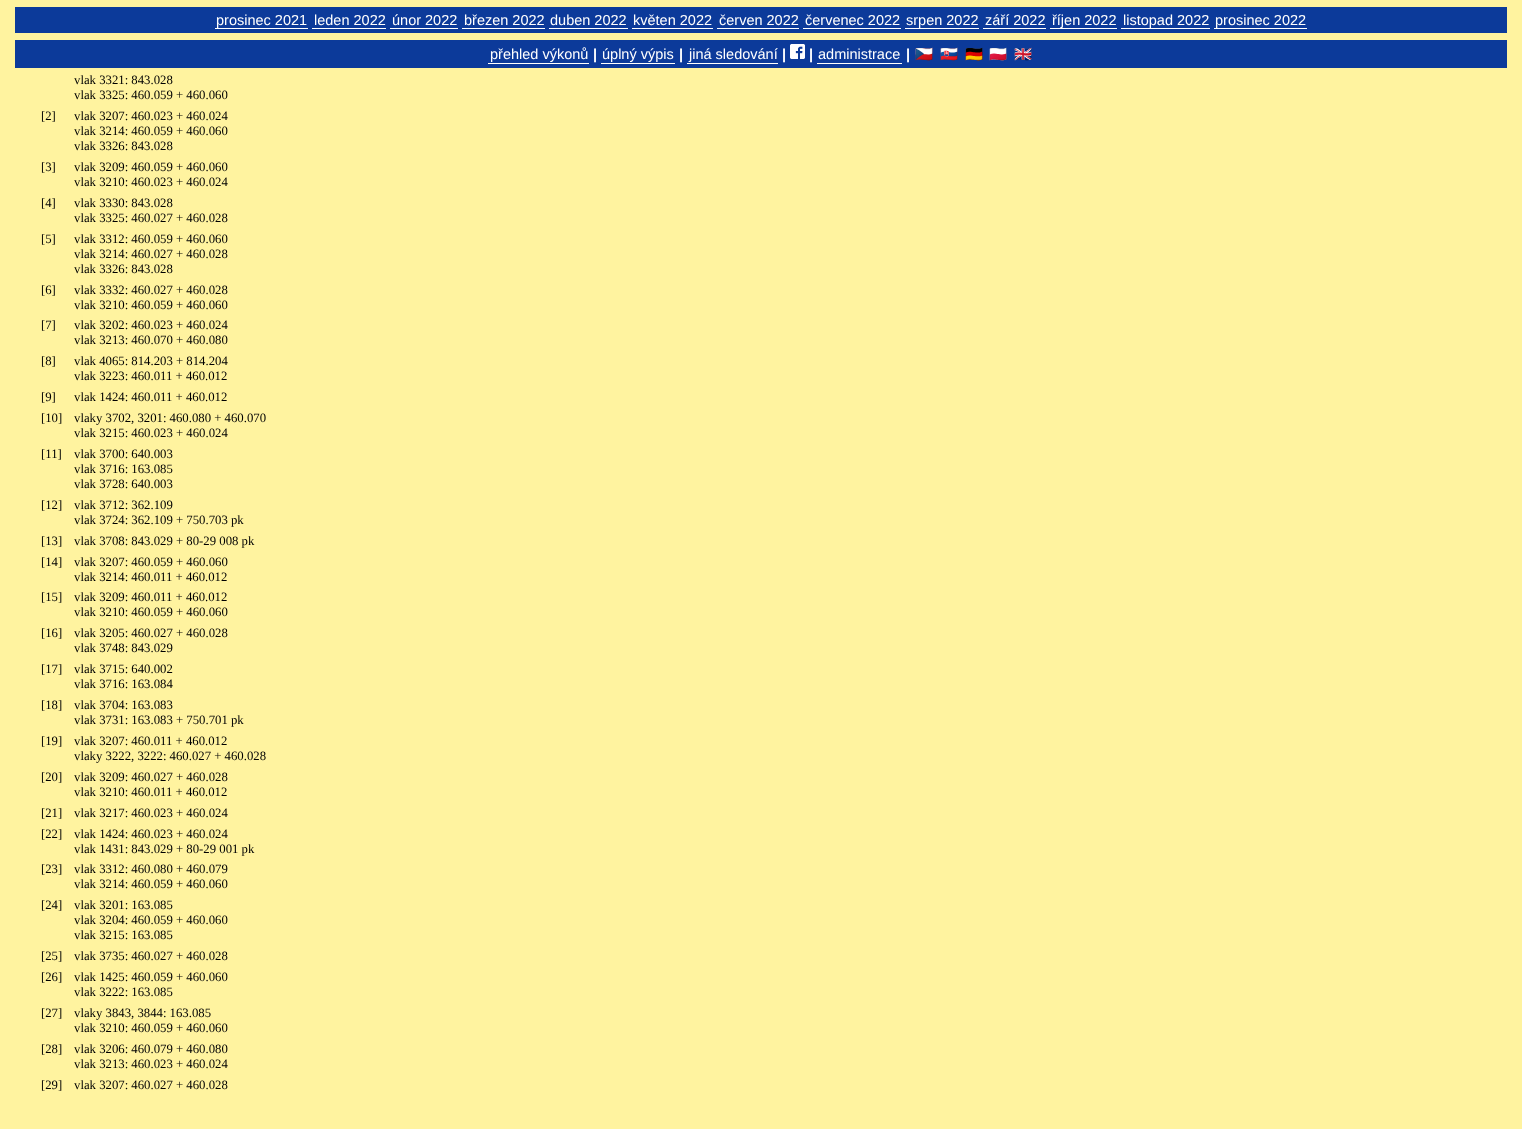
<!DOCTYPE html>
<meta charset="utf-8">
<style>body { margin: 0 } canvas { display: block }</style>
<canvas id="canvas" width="1522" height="1129"></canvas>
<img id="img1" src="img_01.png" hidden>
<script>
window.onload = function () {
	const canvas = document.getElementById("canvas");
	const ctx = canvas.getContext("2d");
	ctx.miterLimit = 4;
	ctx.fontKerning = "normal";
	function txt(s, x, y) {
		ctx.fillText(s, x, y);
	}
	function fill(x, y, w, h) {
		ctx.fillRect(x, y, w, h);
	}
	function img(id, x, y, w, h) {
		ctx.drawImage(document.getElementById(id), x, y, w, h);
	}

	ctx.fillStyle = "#FFF39F";
	fill(0, 0, 1522, 1129);
	ctx.fillStyle = "#0C3A9A";
	fill(15, 7, 1492, 26);
	ctx.fillStyle = "#FFFFFF";
	fill(215, 28, 93, 1);
	fill(312, 28, 74, 1);
	fill(390, 28, 68, 1);
	fill(462, 28, 83, 1);
	fill(549, 28, 79, 1);
	fill(632, 28, 81, 1);
	fill(717, 28, 82, 1);
	fill(803, 28, 98, 1);
	fill(905, 28, 74, 1);
	fill(983, 28, 63, 1);
	fill(1050, 28, 67, 1);
	fill(1121, 28, 89, 1);
	fill(1214, 28, 93, 1);
	ctx.fillStyle = "#0C3A9A";
	fill(15, 40, 1492, 28);
	ctx.fillStyle = "#FFFFFF";
	fill(488, 63, 101, 1);
	fill(601, 63, 74, 1);
	fill(687, 63, 91, 1);
	img("img1", 790, 44, 15, 15);
	fill(817, 63, 85, 1);
	ctx.font = "14.5px Liberation Sans";
	txt("prosinec 2021", 216, 25);
	txt("leden 2022", 314, 25);
	txt("únor 2022", 392, 25);
	txt("březen 2022", 464, 25);
	txt("duben 2022", 550, 25);
	txt("květen 2022", 633, 25);
	txt("červen 2022", 719, 25);
	txt("červenec 2022", 805, 25);
	txt("srpen 2022", 906, 25);
	txt("září 2022", 985, 25);
	txt("říjen 2022", 1052, 25);
	txt("listopad 2022", 1123, 25);
	txt("prosinec 2022", 1215, 25);
	txt("přehled výkonů", 490, 59);
	ctx.font = "bold 14.5px Liberation Sans";
	txt("|", 593, 59);
	ctx.font = "14.5px Liberation Sans";
	txt("úplný výpis", 602, 59);
	ctx.font = "bold 14.5px Liberation Sans";
	txt("|", 679, 59);
	ctx.font = "14.5px Liberation Sans";
	txt("jiná sledování", 689, 59);
	ctx.font = "bold 14.5px Liberation Sans";
	txt("|", 782, 59);
	txt("|", 809, 59);
	ctx.font = "14.5px Liberation Sans";
	txt("administrace", 818, 59);
	ctx.font = "bold 14.5px Liberation Sans";
	txt("|", 906, 59);
	ctx.font = "14.5px Noto Color Emoji";
	txt("🇨🇿", 915, 59);
	txt("🇸🇰", 940, 59);
	txt("🇩🇪", 965, 59);
	txt("🇵🇱", 989, 59);
	txt("🇬🇧", 1014, 59);
	ctx.font = "12.75px Liberation Serif";
	ctx.fillStyle = "#000000";
	txt("vlak 3321: 843.028", 74, 84);
	txt("vlak 3325: 460.059 + 460.060", 74, 99);
	txt("[2]", 41, 120);
	txt("vlak 3207: 460.023 + 460.024", 74, 120);
	txt("vlak 3214: 460.059 + 460.060", 74, 135);
	txt("vlak 3326: 843.028", 74, 150);
	txt("[3]", 41, 171);
	txt("vlak 3209: 460.059 + 460.060", 74, 171);
	txt("vlak 3210: 460.023 + 460.024", 74, 186);
	txt("[4]", 41, 207);
	txt("vlak 3330: 843.028", 74, 207);
	txt("vlak 3325: 460.027 + 460.028", 74, 222);
	txt("[5]", 41, 243);
	txt("vlak 3312: 460.059 + 460.060", 74, 243);
	txt("vlak 3214: 460.027 + 460.028", 74, 258);
	txt("vlak 3326: 843.028", 74, 273);
	txt("[6]", 41, 294);
	txt("vlak 3332: 460.027 + 460.028", 74, 294);
	txt("vlak 3210: 460.059 + 460.060", 74, 309);
	txt("[7]", 41, 329);
	txt("vlak 3202: 460.023 + 460.024", 74, 329);
	txt("vlak 3213: 460.070 + 460.080", 74, 344);
	txt("[8]", 41, 365);
	txt("vlak 4065: 814.203 + 814.204", 74, 365);
	txt("vlak 3223: 460.011 + 460.012", 74, 380);
	txt("[9]", 41, 401);
	txt("vlak 1424: 460.011 + 460.012", 74, 401);
	txt("[10]", 41, 422);
	txt("vlaky 3702, 3201: 460.080 + 460.070", 74, 422);
	txt("vlak 3215: 460.023 + 460.024", 74, 437);
	txt("[11]", 41, 458);
	txt("vlak 3700: 640.003", 74, 458);
	txt("vlak 3716: 163.085", 74, 473);
	txt("vlak 3728: 640.003", 74, 488);
	txt("[12]", 41, 509);
	txt("vlak 3712: 362.109", 74, 509);
	txt("vlak 3724: 362.109 + 750.703 pk", 74, 524);
	txt("[13]", 41, 545);
	txt("vlak 3708: 843.029 + 80-29 008 pk", 74, 545);
	txt("[14]", 41, 566);
	txt("vlak 3207: 460.059 + 460.060", 74, 566);
	txt("vlak 3214: 460.011 + 460.012", 74, 581);
	txt("[15]", 41, 601);
	txt("vlak 3209: 460.011 + 460.012", 74, 601);
	txt("vlak 3210: 460.059 + 460.060", 74, 616);
	txt("[16]", 41, 637);
	txt("vlak 3205: 460.027 + 460.028", 74, 637);
	txt("vlak 3748: 843.029", 74, 652);
	txt("[17]", 41, 673);
	txt("vlak 3715: 640.002", 74, 673);
	txt("vlak 3716: 163.084", 74, 688);
	txt("[18]", 41, 709);
	txt("vlak 3704: 163.083", 74, 709);
	txt("vlak 3731: 163.083 + 750.701 pk", 74, 724);
	txt("[19]", 41, 745);
	txt("vlak 3207: 460.011 + 460.012", 74, 745);
	txt("vlaky 3222, 3222: 460.027 + 460.028", 74, 760);
	txt("[20]", 41, 781);
	txt("vlak 3209: 460.027 + 460.028", 74, 781);
	txt("vlak 3210: 460.011 + 460.012", 74, 796);
	txt("[21]", 41, 817);
	txt("vlak 3217: 460.023 + 460.024", 74, 817);
	txt("[22]", 41, 838);
	txt("vlak 1424: 460.023 + 460.024", 74, 838);
	txt("vlak 1431: 843.029 + 80-29 001 pk", 74, 853);
	txt("[23]", 41, 873);
	txt("vlak 3312: 460.080 + 460.079", 74, 873);
	txt("vlak 3214: 460.059 + 460.060", 74, 888);
	txt("[24]", 41, 909);
	txt("vlak 3201: 163.085", 74, 909);
	txt("vlak 3204: 460.059 + 460.060", 74, 924);
	txt("vlak 3215: 163.085", 74, 939);
	txt("[25]", 41, 960);
	txt("vlak 3735: 460.027 + 460.028", 74, 960);
	txt("[26]", 41, 981);
	txt("vlak 1425: 460.059 + 460.060", 74, 981);
	txt("vlak 3222: 163.085", 74, 996);
	txt("[27]", 41, 1017);
	txt("vlaky 3843, 3844: 163.085", 74, 1017);
	txt("vlak 3210: 460.059 + 460.060", 74, 1032);
	txt("[28]", 41, 1053);
	txt("vlak 3206: 460.079 + 460.080", 74, 1053);
	txt("vlak 3213: 460.023 + 460.024", 74, 1068);
	txt("[29]", 41, 1089);
	txt("vlak 3207: 460.027 + 460.028", 74, 1089);
};
</script>
